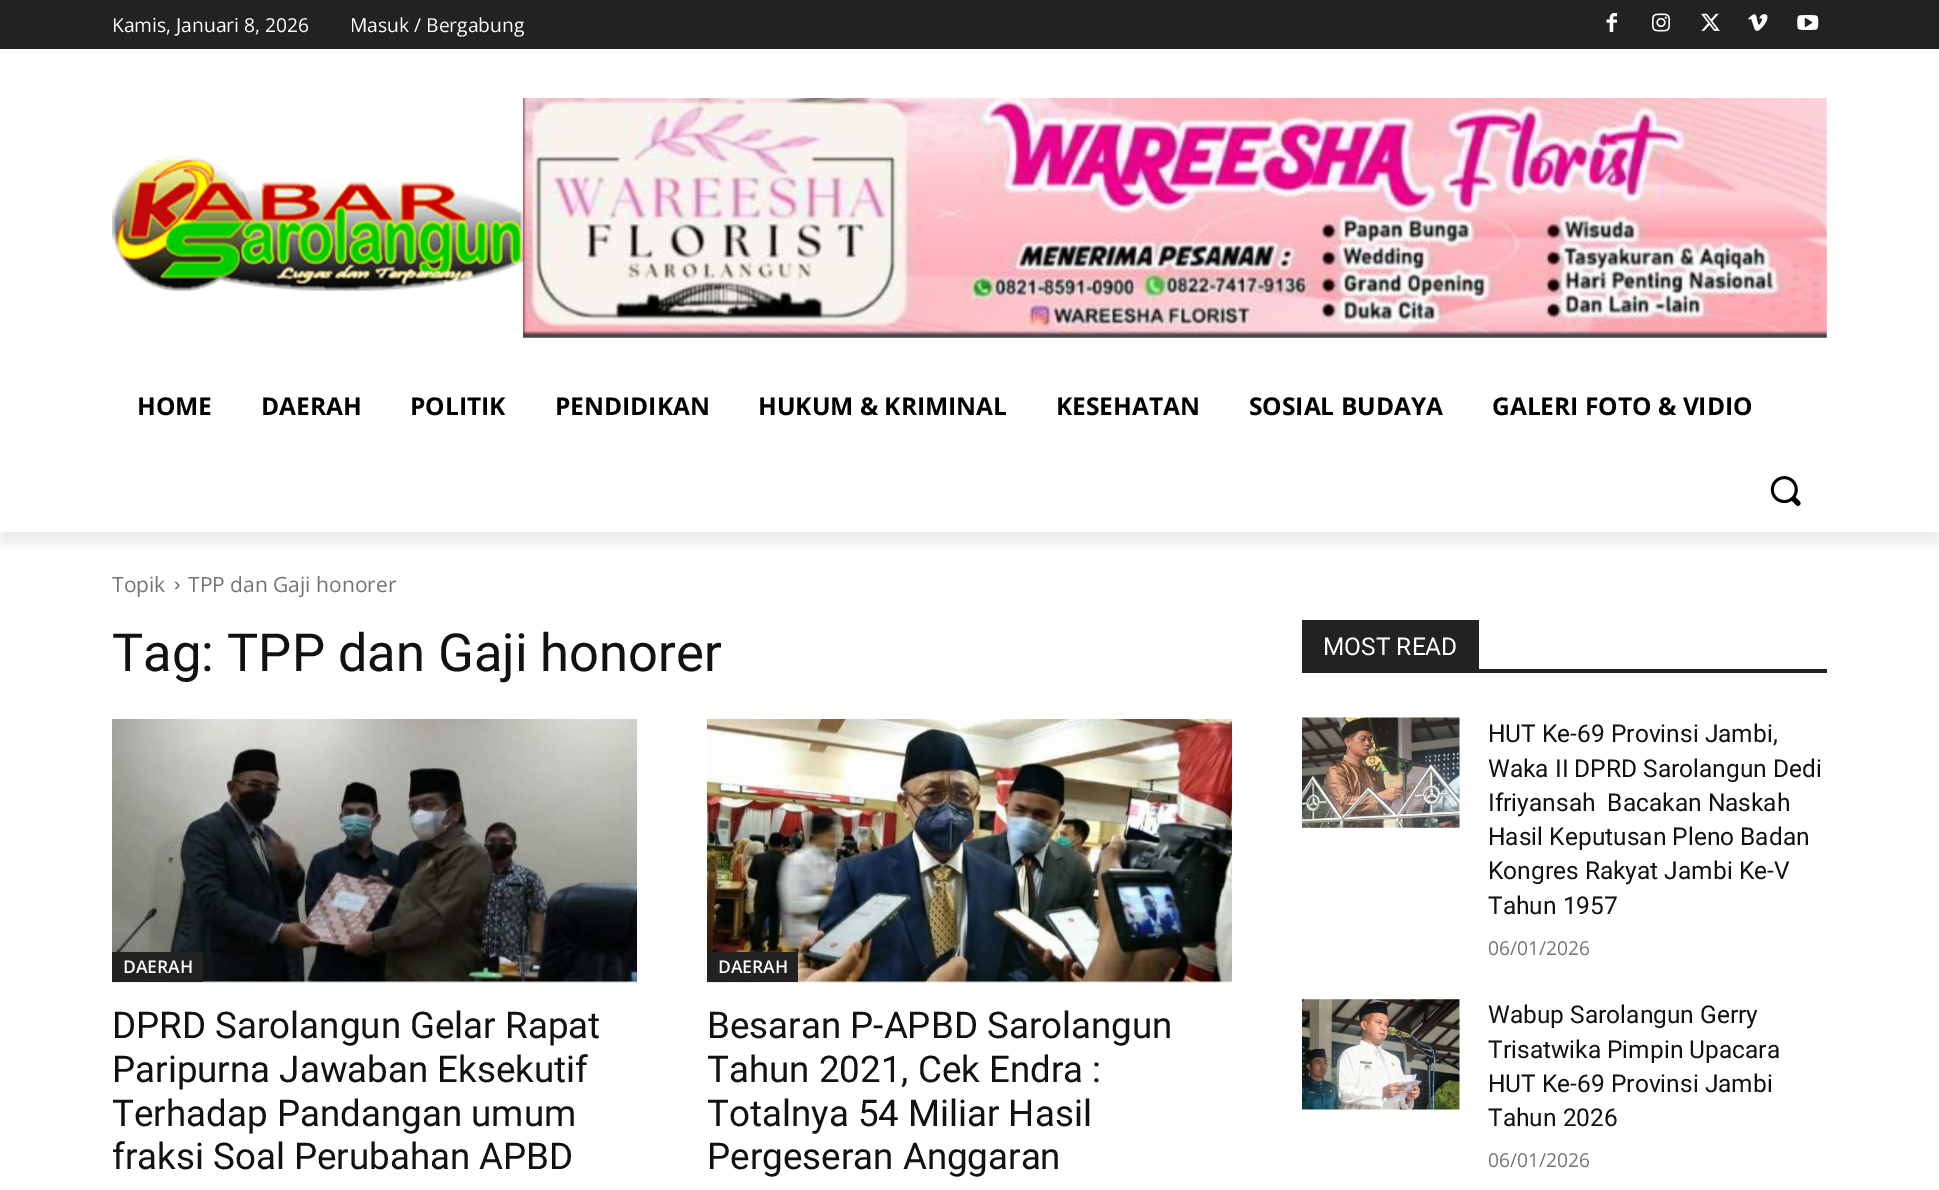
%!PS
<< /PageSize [1939 1190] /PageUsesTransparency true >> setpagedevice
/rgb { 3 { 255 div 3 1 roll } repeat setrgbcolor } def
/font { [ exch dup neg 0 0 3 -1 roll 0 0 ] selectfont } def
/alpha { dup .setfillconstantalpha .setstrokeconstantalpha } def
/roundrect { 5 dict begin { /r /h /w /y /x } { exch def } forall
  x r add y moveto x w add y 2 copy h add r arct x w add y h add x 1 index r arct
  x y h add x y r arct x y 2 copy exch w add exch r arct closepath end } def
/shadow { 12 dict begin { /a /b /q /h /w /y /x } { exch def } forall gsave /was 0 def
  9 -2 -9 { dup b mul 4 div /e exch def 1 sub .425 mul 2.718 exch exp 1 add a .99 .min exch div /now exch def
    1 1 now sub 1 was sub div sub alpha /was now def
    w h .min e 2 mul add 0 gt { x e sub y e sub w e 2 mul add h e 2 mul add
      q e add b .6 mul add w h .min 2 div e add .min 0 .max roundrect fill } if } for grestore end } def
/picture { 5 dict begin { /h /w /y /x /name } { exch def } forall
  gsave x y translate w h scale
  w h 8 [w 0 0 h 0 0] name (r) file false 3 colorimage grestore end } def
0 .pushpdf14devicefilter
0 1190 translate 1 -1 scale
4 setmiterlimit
255 255 255 rgb
0 0 1939 1190 rectfill
34 34 34 rgb
0 0 1939 49 rectfill
(img/1.rgb) 1606 13 11 19 picture
(img/2.rgb) 1652 13 18 19 picture
(img/3.rgb) 1701 13 19 18 picture
(img/4.rgb) 1748 14 20 17 picture
(img/5.rgb) 1797 15 22 15 picture
(img/6.rgb) 112 155 411 136 picture
(img/7.rgb) 523 98 1304 240 picture
gsave
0 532 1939 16 rectclip
0 0 0 rgb
0 11 1939 532 0 7 0.08 shadow
grestore
(img/8.rgb) 1770 476 31 30 picture
(img/9.rgb) 175 581 5 9 picture
(img/10.rgb) 112 719 525 264 picture
112 952 91 30 rectfill
(img/11.rgb) 707 719 525 264 picture
[
  [707 952 91 30 34 34 34]
  [1302 669 525 4 34 34 34]
  [1302 620 177 49 34 34 34]
] { aload pop rgb rectfill } forall
(img/12.rgb) 1302 717 158 111 picture
(img/13.rgb) 1302 999 158 111 picture
/OpenSans-Regular 19.25 font
255 255 255 rgb
112 32 moveto (Kamis, Januari 8, 2026) show
350 32 moveto (Masuk / Bergabung) show
/OpenSans-Bold 24.5 font
0 0 0 rgb
[
  [(HOME) 137 415]
  [(DAERAH) 261 415]
  [(POLITIK) 410 415]
  [(PENDIDIKAN) 555 415]
  [(HUKUM & KRIMINAL) 758 415]
  [(KESEHATAN) 1056 415]
  [(SOSIAL BUDAYA) 1249 415]
  [(GALERI FOTO & VIDIO) 1492 415]
] { aload pop moveto show } forall
/OpenSans-Regular 21 font
116 116 116 rgb
112 592 moveto (Topik) show
188 592 moveto (TPP dan Gaji honorer) show
/Roboto-Regular 52.5 font
17 17 17 rgb
112 671 moveto (Tag: TPP dan Gaji honorer) show
/OpenSans-SemiBold 17.5 font
255 255 255 rgb
123 973 moveto (DAERAH) show
/Roboto-Regular 36.75 font
17 17 17 rgb
[
  [(DPRD Sarolangun Gelar Rapat) 112 1038]
  [(Paripurna Jawaban Eksekutif) 112 1082]
  [(Terhadap Pandangan umum) 112 1126]
  [(fraksi Soal Perubahan APBD) 112 1169]
] { aload pop moveto show } forall
/OpenSans-SemiBold 17.5 font
255 255 255 rgb
718 973 moveto (DAERAH) show
/Roboto-Regular 36.75 font
17 17 17 rgb
[
  [(Besaran P-APBD Sarolangun) 707 1038]
  [(Tahun 2021, Cek Endra :) 707 1082]
  [(Totalnya 54 Miliar Hasil) 707 1126]
  [(Pergeseran Anggaran) 707 1169]
] { aload pop moveto show } forall
/Roboto-Regular 24.5 font
255 255 255 rgb
1323 655 moveto (MOST READ) show
17 17 17 rgb
[
  [(HUT Ke-69 Provinsi Jambi,) 1488 742]
  [(Waka II DPRD Sarolangun Dedi) 1488 777]
  [(Ifriyansah  Bacakan Naskah) 1488 811]
  [(Hasil Keputusan Pleno Badan) 1488 845]
  [(Kongres Rakyat Jambi Ke-V) 1488 879]
  [(Tahun 1957) 1488 914]
] { aload pop moveto show } forall
/OpenSans-Regular 19.25 font
116 116 116 rgb
1488 955 moveto (06/01/2026) show
/Roboto-Regular 24.5 font
17 17 17 rgb
[
  [(Wabup Sarolangun Gerry) 1488 1023]
  [(Trisatwika Pimpin Upacara) 1488 1058]
  [(HUT Ke-69 Provinsi Jambi) 1488 1092]
  [(Tahun 2026) 1488 1126]
] { aload pop moveto show } forall
/OpenSans-Regular 19.25 font
116 116 116 rgb
1488 1167 moveto (06/01/2026) show
.poppdf14devicefilter showpage
